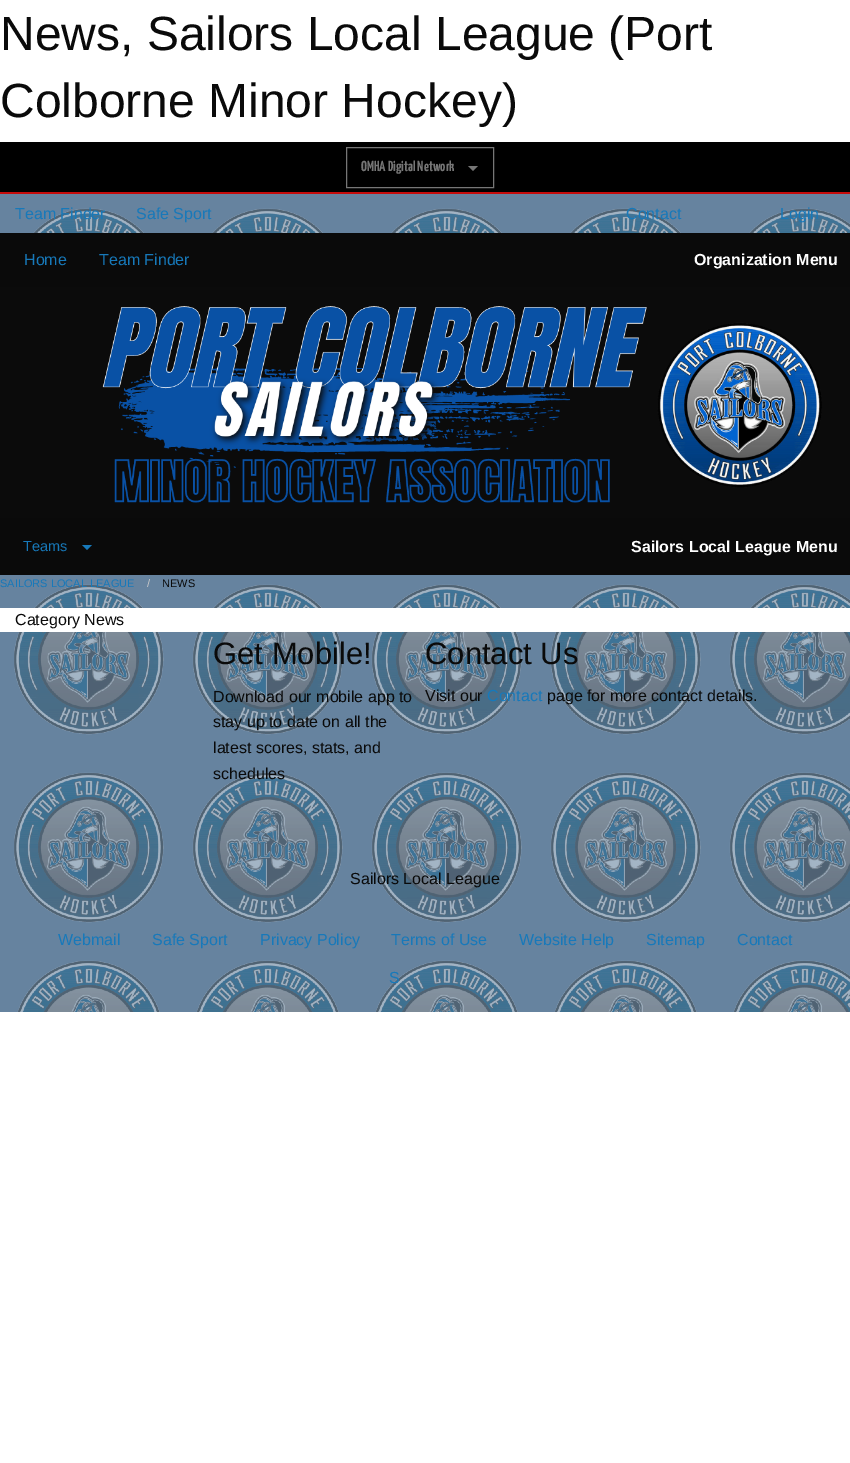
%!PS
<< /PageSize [850 1463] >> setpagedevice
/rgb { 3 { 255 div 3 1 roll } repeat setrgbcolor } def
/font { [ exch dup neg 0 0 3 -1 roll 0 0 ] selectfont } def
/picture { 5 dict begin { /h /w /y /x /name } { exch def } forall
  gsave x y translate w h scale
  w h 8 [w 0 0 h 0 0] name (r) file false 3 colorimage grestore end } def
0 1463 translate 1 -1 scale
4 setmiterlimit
255 255 255 rgb
0 0 850 1463 rectfill
0 0 0 rgb
0 142 850 50 rectfill
198 12 12 rgb
0 192 850 2 rectfill
118 118 118 rgb
346.5 147.5 147 40 rectstroke
468 166 moveto 478 166 lineto 473 171 lineto closepath fill
102 131 159 rgb
0 194 850 818 rectfill
(img/1.rgb) 14 208 836 804 picture
10 10 10 rgb
0 233 850 54 rectfill
(img/2.rgb) 0 287 850 231 picture
0 518 850 57 rectfill
23 121 186 rgb
82 545 moveto 92 545 lineto 87 550 lineto closepath fill
255 255 255 rgb
0 608 850 24 rectfill
/LiberationSans-Regular 48 font
10 10 10 rgb
0 50 moveto (News, Sailors Local League \(Port) show
0 117 moveto (Colborne Minor Hockey\)) show
/YanoneKaffeesatz-ExtraLight 14.5 font
118 118 118 rgb
361 171 moveto (OMHA Digital Network) show
/LiberationSans-Regular 16 font
23 121 186 rgb
[
  [(Team Finder) 15 219]
  [(Safe Sport) 136 219]
  [(Contact) 626 219]
  [(Login) 780 219]
  [(Home) 24 265]
  [(Team Finder) 99 265]
] { aload pop moveto show } forall
/LiberationSans-Bold 16 font
254 254 254 rgb
694 265 moveto (Organization Menu) show
/LiberationSans-Regular 14.5 font
23 121 186 rgb
23 551 moveto (Teams) show
/LiberationSans-Bold 16 font
254 254 254 rgb
631 552 moveto (Sailors Local League Menu) show
/LiberationSans-Regular 11 font
23 121 186 rgb
0 587 moveto (SAILORS LOCAL LEAGUE) show
202 202 202 rgb
147 587 moveto (/) show
10 10 10 rgb
162 587 moveto (NEWS) show
/LiberationSans-Regular 16 font
15 625 moveto (Category News) show
/LiberationSans-Regular 31 font
213 664 moveto (Get Mobile!) show
/LiberationSans-Regular 16 font
[
  [(Download our mobile app to) 213 702]
  [(stay up to date on all the) 213 727]
  [(latest scores, stats, and) 213 753]
  [(schedules) 213 779]
] { aload pop moveto show } forall
/LiberationSans-Regular 31 font
425 664 moveto (Contact Us) show
/LiberationSans-Regular 16 font
425 701 moveto (Visit our) show
23 121 186 rgb
487 701 moveto (Contact) show
10 10 10 rgb
547 701 moveto (page for more contact details.) show
350 884 moveto (Sailors Local League) show
23 121 186 rgb
[
  [(Webmail) 58 945]
  [(Safe Sport) 152 945]
  [(Privacy Policy) 260 945]
  [(Terms of Use) 391 945]
  [(Website Help) 519 945]
  [(Sitemap) 646 945]
  [(Contact) 737 945]
  [(S) 389 983]
] { aload pop moveto show } forall
showpage
